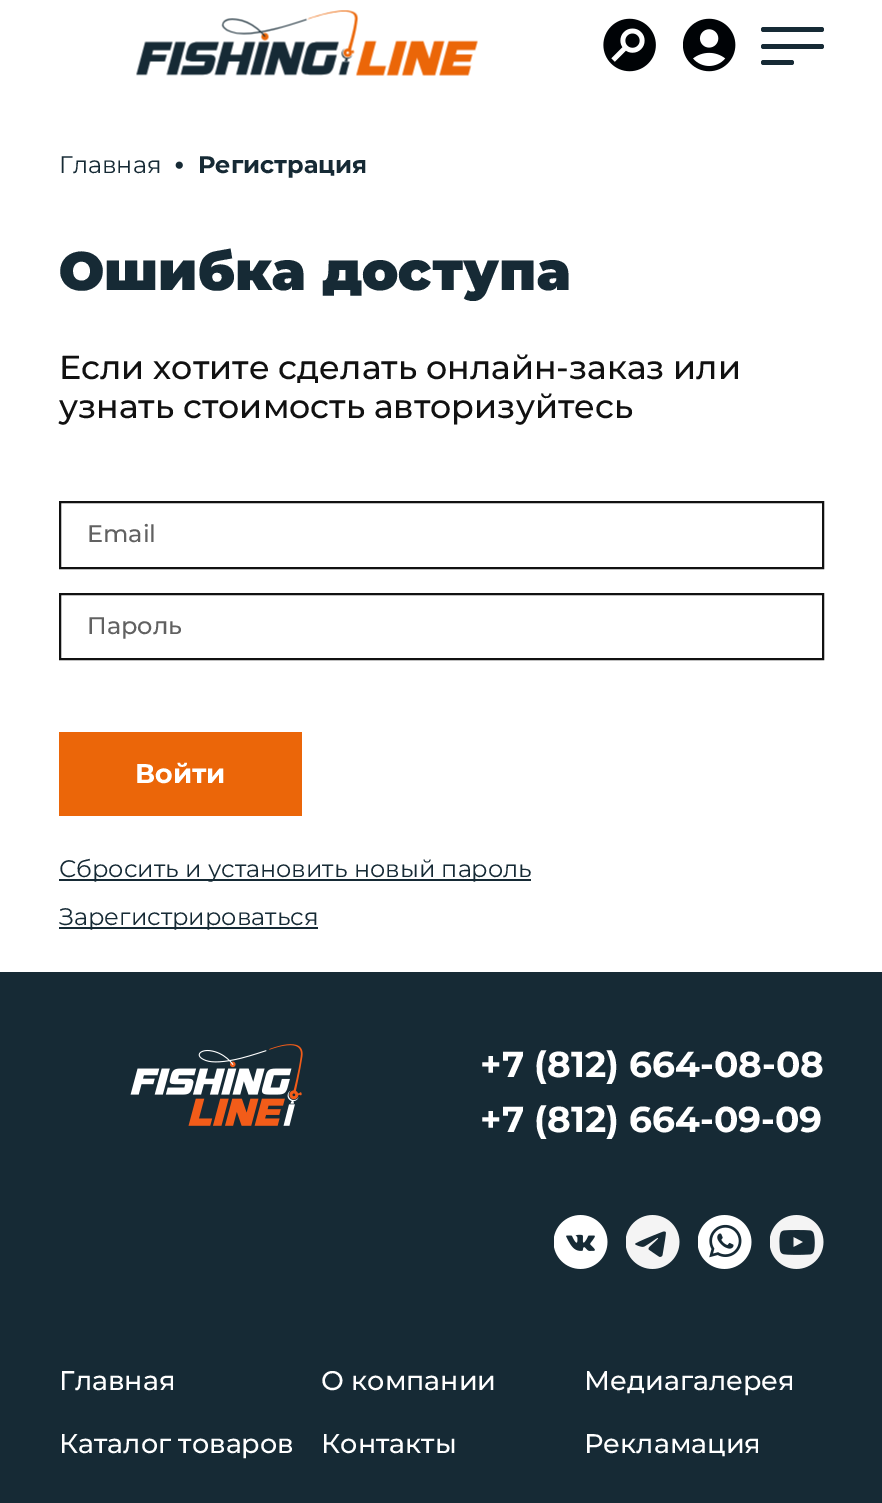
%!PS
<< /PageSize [882 1503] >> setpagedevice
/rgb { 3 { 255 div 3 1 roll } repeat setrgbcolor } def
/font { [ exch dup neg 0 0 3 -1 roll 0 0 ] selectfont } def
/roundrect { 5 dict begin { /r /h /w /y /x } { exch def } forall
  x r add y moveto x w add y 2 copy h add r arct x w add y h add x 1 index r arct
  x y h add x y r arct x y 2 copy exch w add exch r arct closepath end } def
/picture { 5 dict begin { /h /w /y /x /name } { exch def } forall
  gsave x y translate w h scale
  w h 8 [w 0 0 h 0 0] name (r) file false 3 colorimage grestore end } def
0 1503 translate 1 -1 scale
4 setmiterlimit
255 255 255 rgb
0 0 882 1503 rectfill
(img/1.rgb) 136 10 342 66 picture
(img/2.rgb) 603 18 53 54 picture
(img/3.rgb) 683 18 53 54 picture
22 42 53 rgb
761 27 63 5 2.5 roundrect fill
761 44 63 5 2.5 roundrect fill
761 60 33 5 2.5 roundrect fill
(img/4.rgb) 175 161 8 8 picture
17 17 17 rgb
2 setlinewidth
60 502 763 66 rectstroke
60 594 763 65 rectstroke
[
  [59 732 243 84 235 102 9]
  [59 879 472 2 22 42 53]
  [59 927 259 2 22 42 53]
  [0 972 882 531 22 42 53]
] { aload pop rgb rectfill } forall
(img/5.rgb) 130 1044 173 82 picture
(img/6.rgb) 554 1215 54 54 picture
(img/7.rgb) 626 1215 54 54 picture
(img/8.rgb) 698 1215 54 54 picture
(img/9.rgb) 770 1215 54 54 picture
/Montserrat-Regular 24 font
59 173 moveto (Главная) show
/Montserrat-Bold 24 font
198 173 moveto (Регистрация) show
/Montserrat-Black 54 font
59 290 moveto (Ошибка доступа) show
/Montserrat-Medium 33.25 font
17 17 17 rgb
59 379 moveto (Если хотите сделать онлайн-заказ или) show
59 418 moveto (узнать стоимость авторизуйтесь) show
/Montserrat-Medium 24 font
97 97 97 rgb
87 542 moveto (Email) show
87 634 moveto (Пароль) show
/Montserrat-Bold 27 font
255 255 255 rgb
135 783 moveto (Войти) show
/Montserrat-Regular 24 font
22 42 53 rgb
59 877 moveto (Сбросить и установить новый пароль) show
59 925 moveto (Зарегистрироваться) show
/Montserrat-Bold 36 font
255 255 255 rgb
480 1077 moveto (+7 \(812\) 664-08-08) show
480 1132 moveto (+7 \(812\) 664-09-09) show
/Montserrat-Medium 27 font
[
  [(Главная) 59 1390]
  [(О компании) 321 1390]
  [(Медиагалерея) 584 1390]
  [(Каталог товаров) 59 1453]
  [(Контакты) 321 1453]
  [(Рекламация) 584 1453]
] { aload pop moveto show } forall
showpage
